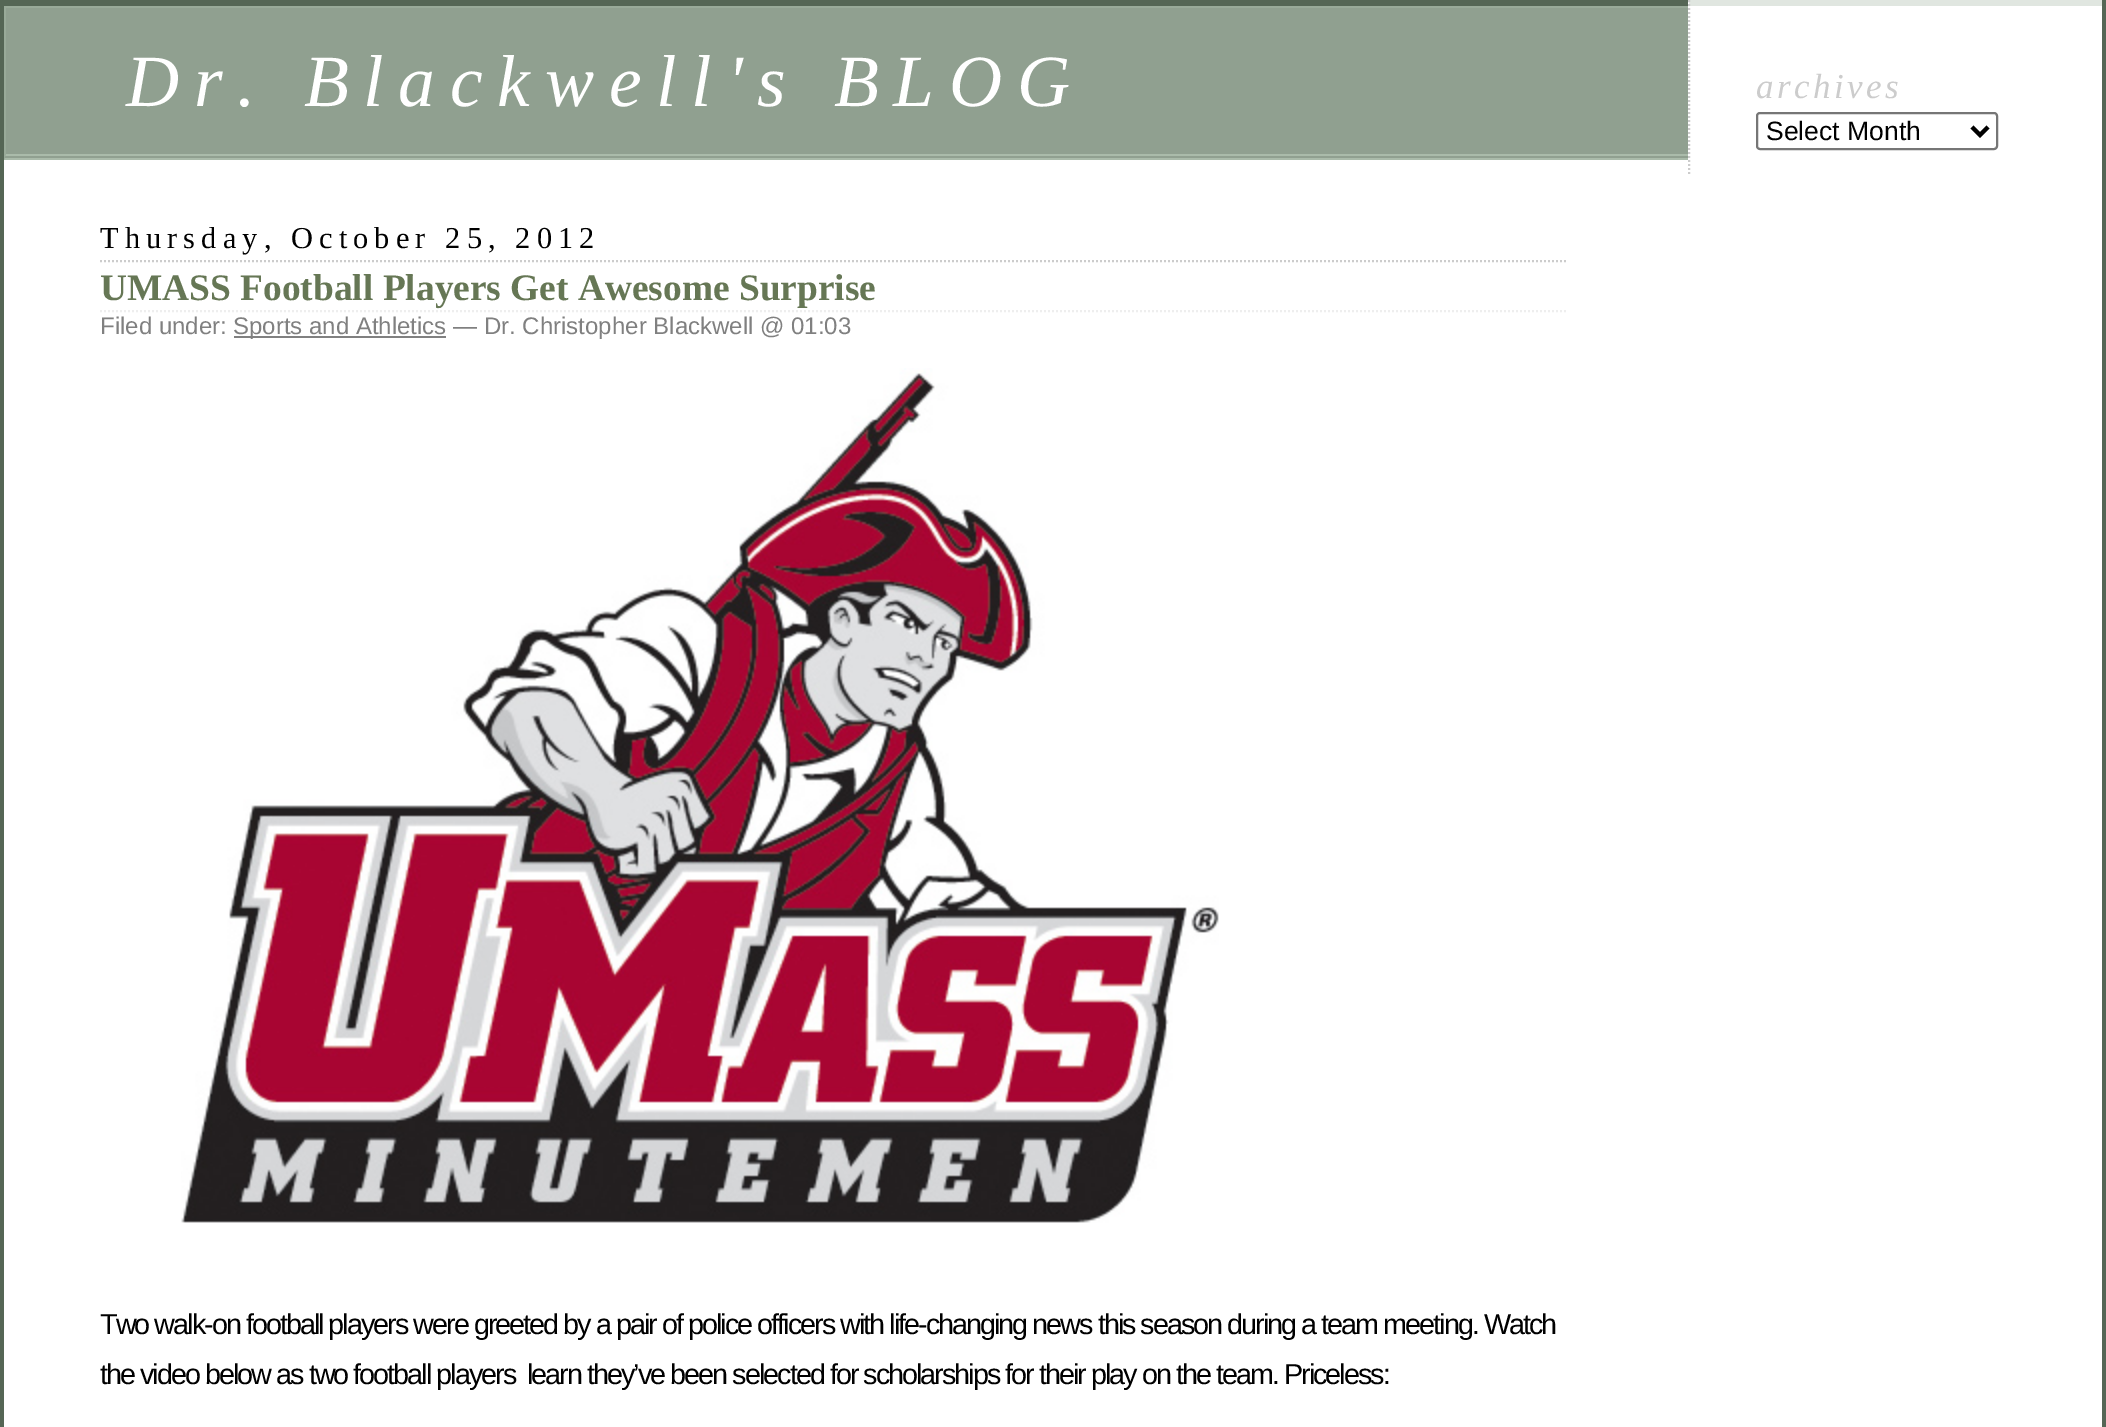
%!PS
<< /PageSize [2106 1427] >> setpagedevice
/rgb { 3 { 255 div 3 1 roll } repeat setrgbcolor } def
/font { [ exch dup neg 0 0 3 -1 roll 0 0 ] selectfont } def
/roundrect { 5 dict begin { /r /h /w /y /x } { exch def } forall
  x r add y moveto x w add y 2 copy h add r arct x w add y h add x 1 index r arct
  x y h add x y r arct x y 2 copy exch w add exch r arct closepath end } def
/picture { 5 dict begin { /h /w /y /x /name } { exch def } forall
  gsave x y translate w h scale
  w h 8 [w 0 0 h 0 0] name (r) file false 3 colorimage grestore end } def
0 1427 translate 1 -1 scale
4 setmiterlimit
255 255 255 rgb
0 0 2106 1427 rectfill
[
  [0 0 1688 6 85 102 85]
  [2102 0 4 1427 85 102 85]
  [0 0 4 1427 85 102 85]
  [4 8 1684 150 144 160 144]
  [4 6 1684 2 153 170 153]
  [4 154 1684 2 170 187 170]
  [4 158 1684 2 170 187 170]
] { aload pop rgb rectfill } forall
153 170 153 rgb
4 160 moveto 4 6 lineto 6 8 lineto 6 154 lineto closepath fill
224 230 224 rgb
1688 0 moveto 2102 0 lineto 2102 6 lineto 1690 6 lineto closepath fill
204 204 204 rgb
2 setlinewidth
[2 2] 0 setdash
1689 0 moveto 1689 174 lineto stroke
118 118 118 rgb
[] 0 setdash
1757 113 240 36 3 roundrect stroke
0 0 0 rgb
4 setlinewidth
1972 127 moveto 1980 135 lineto 1988 127 lineto stroke
204 204 204 rgb
2 setlinewidth
[2 2] 0 setdash
100 261 moveto 1566 261 lineto stroke
238 238 238 rgb
100 311 moveto 1566 311 lineto stroke
128 128 128 rgb
234 336 212 2 rectfill
(img/1.rgb) 181 368 1038 855 picture
/LiberationSerif-Italic 73.6 font
255 255 255 rgb
126 106 moveto 14.75 0 (Dr. Blackwell's BLOG) ashow
/LiberationSerif-Italic 35 font
204 204 204 rgb
1756 98 moveto 3.5 0 (archives) ashow
/LiberationSans-Regular 26.5 font
0 0 0 rgb
1766 140 moveto (Select Month) show
/LiberationSerif-Regular 30.4 font
100 248 moveto 6.1 0 (Thursday, October 25, 2012) ashow
/LiberationSerif-Bold 37.4 font
102 119 85 rgb
100 300 moveto (UMASS Football Players Get Awesome Surprise) show
/LiberationSans-Regular 24 font
128 128 128 rgb
100 334 moveto (Filed under:) show
233 334 moveto (Sports and Athletics — Dr. Christopher Blackwell @ 01:03) show
/LiberationSans-Regular 28.8 font
0 0 0 rgb
100 1334 moveto -2 0 (Two walk-on football players were greeted by a pair of police officers with life-changing news this season during a team meeting. Watch) ashow
100 1384 moveto -2 0 (the video below as two football players  learn they’ve been selected for scholarships for their play on the team. Priceless:) ashow
showpage
